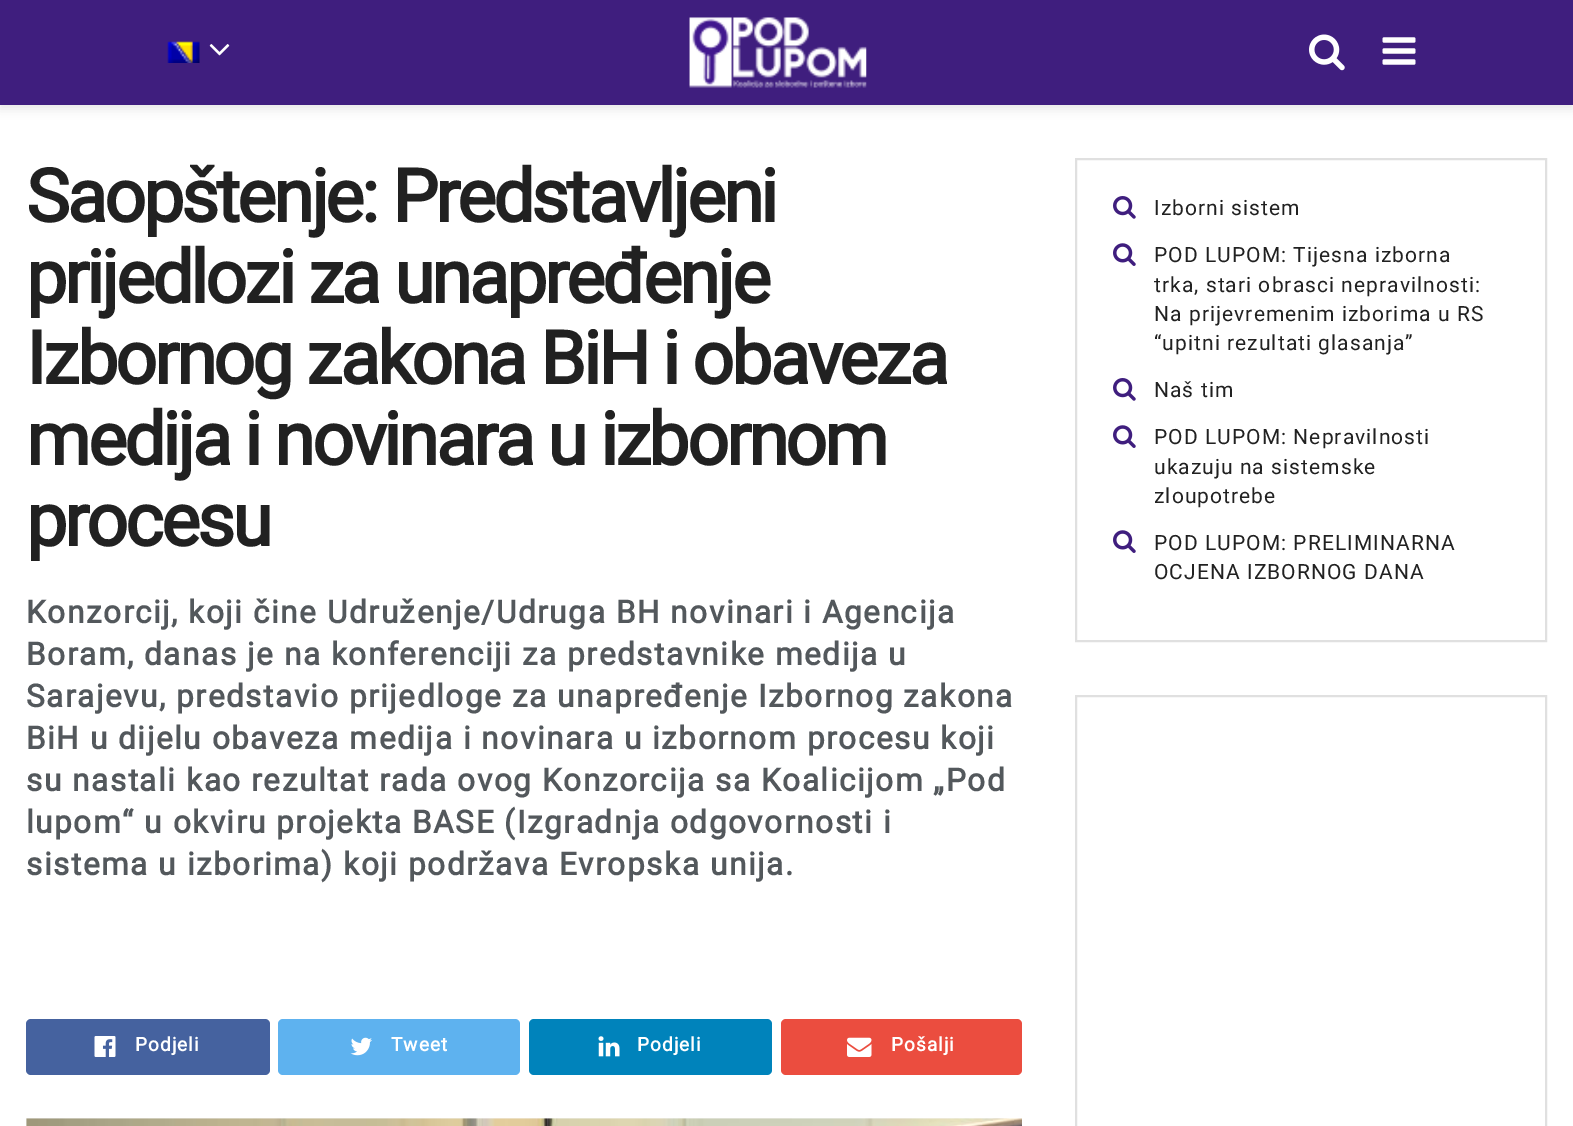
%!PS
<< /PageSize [1573 1126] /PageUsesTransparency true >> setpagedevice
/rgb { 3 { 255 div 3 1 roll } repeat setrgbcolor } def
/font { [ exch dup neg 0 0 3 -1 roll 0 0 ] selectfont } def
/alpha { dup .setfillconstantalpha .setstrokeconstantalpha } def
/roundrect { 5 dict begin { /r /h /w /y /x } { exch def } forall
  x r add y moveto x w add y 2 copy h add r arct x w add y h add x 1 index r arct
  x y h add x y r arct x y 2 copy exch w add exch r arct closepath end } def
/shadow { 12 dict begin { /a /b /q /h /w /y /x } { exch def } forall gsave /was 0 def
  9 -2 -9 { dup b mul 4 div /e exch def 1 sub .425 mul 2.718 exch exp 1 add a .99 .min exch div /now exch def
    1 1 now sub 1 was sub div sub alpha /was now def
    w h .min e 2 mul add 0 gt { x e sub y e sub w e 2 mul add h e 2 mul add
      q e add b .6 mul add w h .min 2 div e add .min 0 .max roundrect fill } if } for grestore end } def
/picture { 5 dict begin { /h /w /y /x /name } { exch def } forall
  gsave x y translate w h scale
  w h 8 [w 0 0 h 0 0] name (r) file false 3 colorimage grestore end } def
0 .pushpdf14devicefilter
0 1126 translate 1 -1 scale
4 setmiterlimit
255 255 255 rgb
0 0 1573 1126 rectfill
0 0 0 rgb
0 4 1573 105 0 5 0.1 shadow
63 30 126 rgb
0 0 1573 105 rectfill
(img/1.rgb) 167 41 33 22 picture
(img/2.rgb) 209 44 21 12 picture
(img/3.rgb) 689 17 178 71 picture
(img/4.rgb) 1309 34 36 37 picture
(img/5.rgb) 1382 37 34 28 picture
69 98 159 rgb
26 1019 244 56 5 roundrect fill
(img/6.rgb) 94 1036 22 21 picture
94 178 239 rgb
278 1019 242 56 5 roundrect fill
(img/7.rgb) 350 1037 22 19 picture
0 131 187 rgb
529 1019 243 56 5 roundrect fill
(img/8.rgb) 598 1036 22 21 picture
235 77 63 rgb
781 1019 241 56 5 roundrect fill
(img/9.rgb) 847 1037 25 20 picture
247 247 247 rgb
26 1118 996 8 rectfill
(img/10.rgb) 26 1118 996 8 picture
224 224 224 rgb
2 setlinewidth
1076 159 470 482 rectstroke
(img/11.rgb) 1113 196 23 23 picture
(img/12.rgb) 1113 243 23 23 picture
(img/11.rgb) 1113 378 23 23 picture
(img/12.rgb) 1113 425 23 23 picture
(img/12.rgb) 1113 530 23 23 picture
1076 696 470 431 rectstroke
/Roboto-Bold 73.5 font
33 33 33 rgb
26 222 moveto -2.95 0 (Saopštenje: Predstavljeni) ashow
26 303 moveto -2.95 0 (prijedlozi za unapređenje) ashow
26 384 moveto -2.95 0 (Izbornog zakona BiH i obaveza) ashow
26 465 moveto -2.95 0 (medija i novinara u izbornom) ashow
26 546 moveto -2.95 0 (procesu) ashow
/Roboto-Bold 31.5 font
83 88 92 rgb
26 623 moveto 1.57 0 (Konzorcij, koji čine Udruženje/Udruga BH novinari i Agencija) ashow
26 665 moveto 1.57 0 (Boram, danas je na konferenciji za predstavnike medija u) ashow
26 707 moveto 1.57 0 (Sarajevu, predstavio prijedloge za unapređenje Izbornog zakona) ashow
26 749 moveto 1.57 0 (BiH u dijelu obaveza medija i novinara u izbornom procesu koji) ashow
26 791 moveto 1.57 0 (su nastali kao rezultat rada ovog Konzorcija sa Koalicijom „Pod) ashow
26 833 moveto 1.57 0 (lupom“ u okviru projekta BASE \(Izgradnja odgovornosti i) ashow
26 875 moveto 1.57 0 (sistema u izborima\) koji podržava Evropska unija.) ashow
/Roboto-Bold 19 font
255 255 255 rgb
135 1051 moveto 1 0 (Podjeli) ashow
391 1051 moveto 1 0 (Tweet) ashow
637 1051 moveto 1 0 (Podjeli) ashow
891 1051 moveto 1 0 (Pošalji) ashow
/Roboto-Regular 21 font
33 33 33 rgb
1154 215 moveto 1.05 0 (Izborni sistem) ashow
1154 262 moveto 1.05 0 (POD LUPOM: Tijesna izborna) ashow
1154 292 moveto 1.05 0 (trka, stari obrasci nepravilnosti:) ashow
1154 321 moveto 1.05 0 (Na prijevremenim izborima u RS) ashow
1154 350 moveto 1.05 0 (“upitni rezultati glasanja”) ashow
1154 397 moveto 1.05 0 (Naš tim) ashow
1154 444 moveto 1.05 0 (POD LUPOM: Nepravilnosti) ashow
1154 474 moveto 1.05 0 (ukazuju na sistemske) ashow
1154 503 moveto 1.05 0 (zloupotrebe) ashow
1154 550 moveto 1.05 0 (POD LUPOM: PRELIMINARNA) ashow
1154 579 moveto 1.05 0 (OCJENA IZBORNOG DANA) ashow
.poppdf14devicefilter showpage
